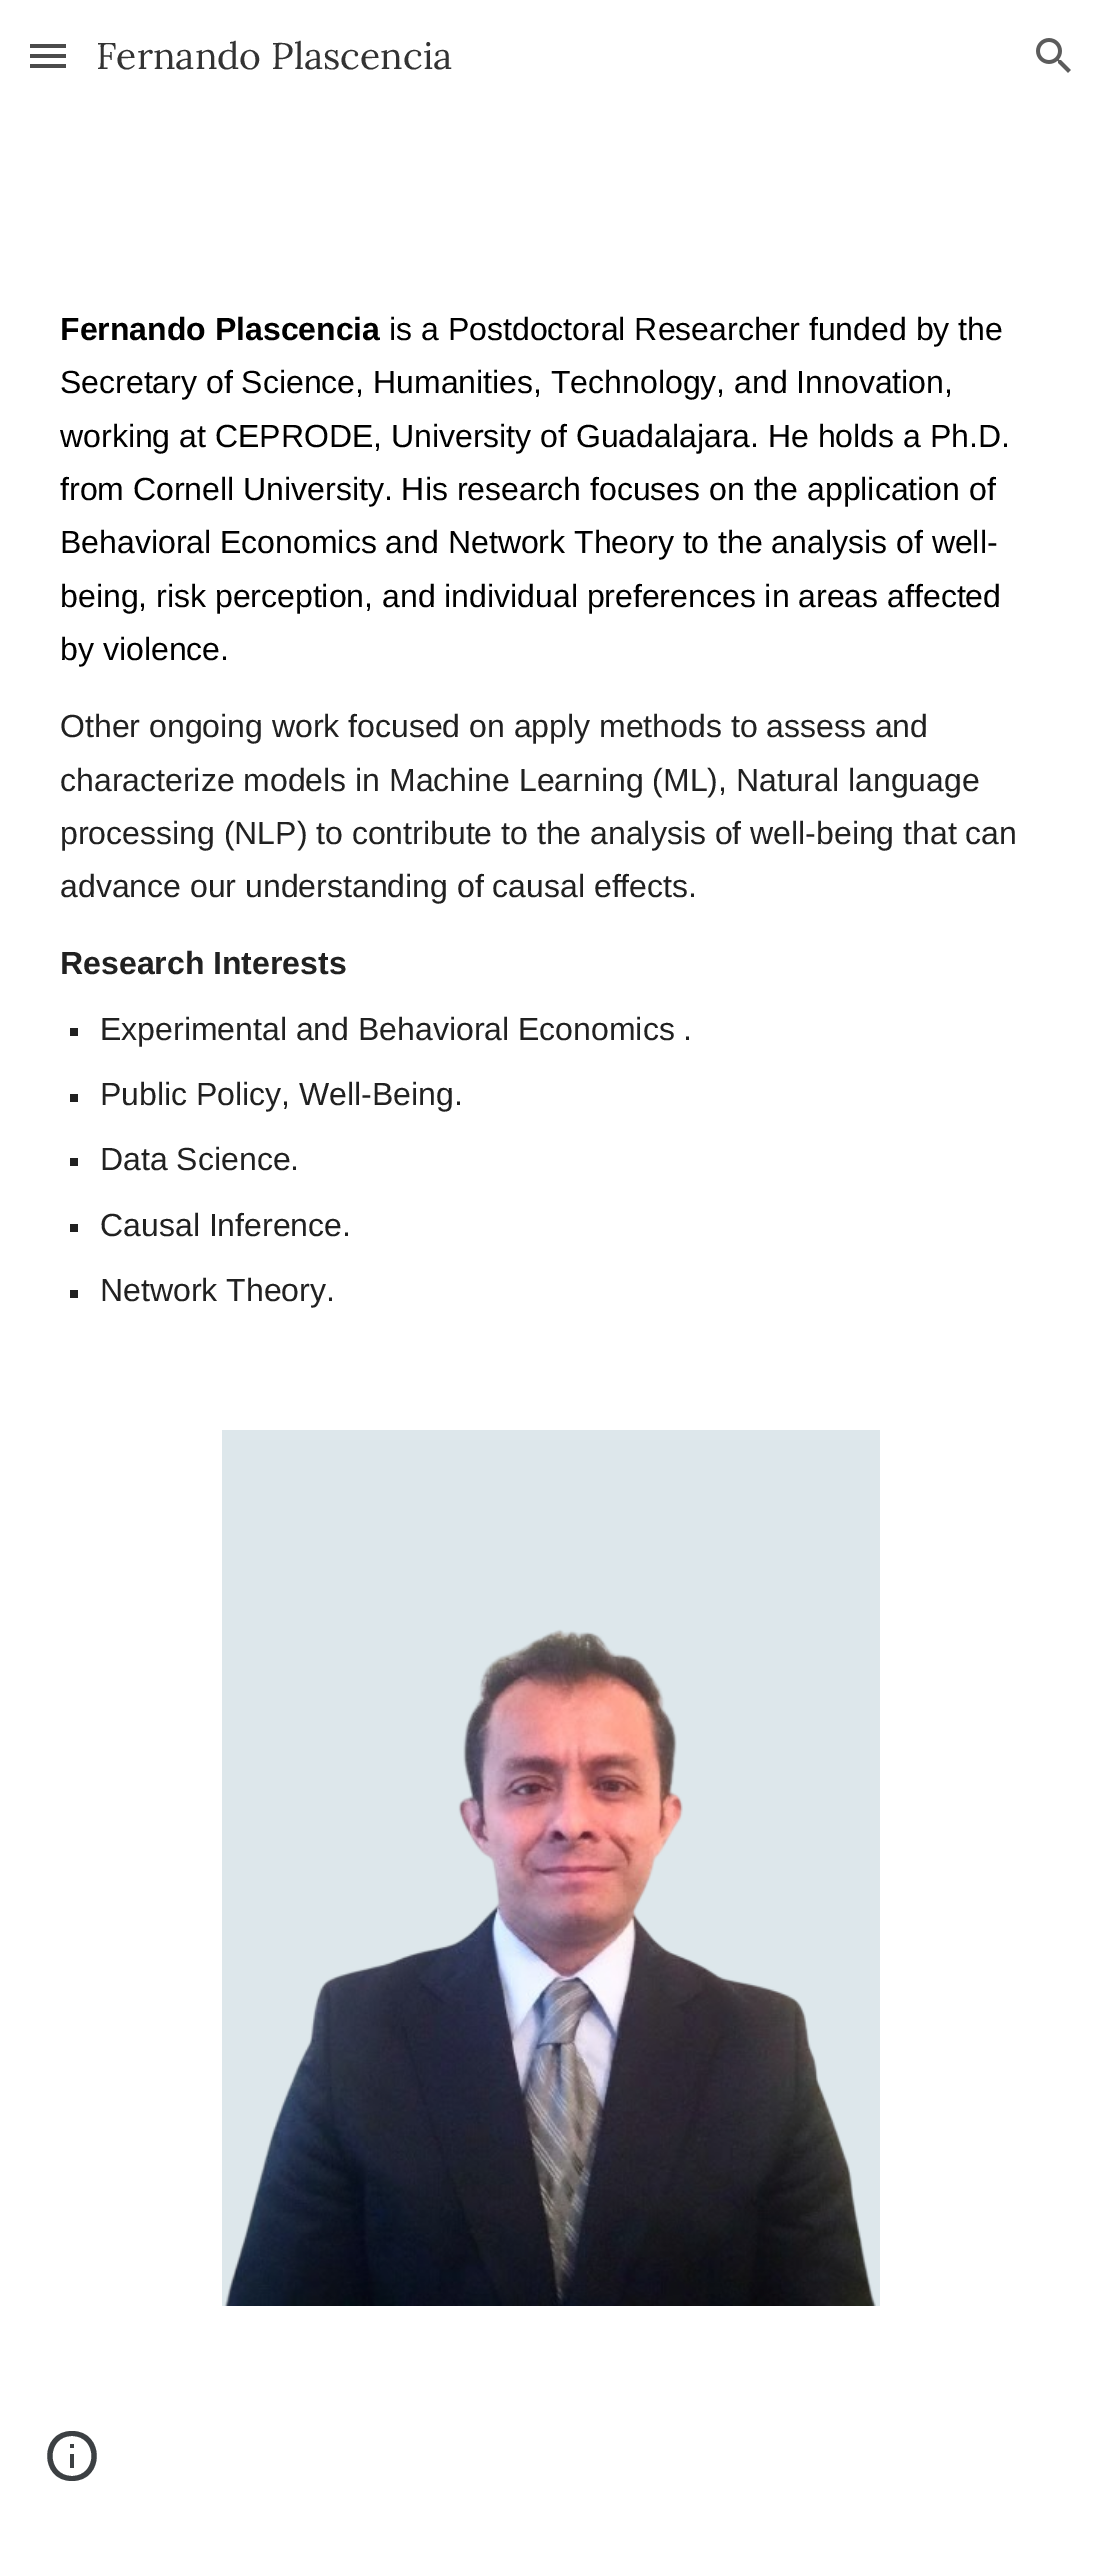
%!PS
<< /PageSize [1101 2550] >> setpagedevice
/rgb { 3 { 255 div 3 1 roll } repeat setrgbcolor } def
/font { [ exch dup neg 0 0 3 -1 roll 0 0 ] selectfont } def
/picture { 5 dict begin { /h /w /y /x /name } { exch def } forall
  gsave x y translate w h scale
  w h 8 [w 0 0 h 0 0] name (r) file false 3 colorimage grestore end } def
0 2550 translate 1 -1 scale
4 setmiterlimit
255 255 255 rgb
0 0 1101 2550 rectfill
[
  [30 44 36 4 75 75 75]
  [30 54 36 4 75 75 75]
  [30 64 36 4 75 75 75]
] { aload pop rgb rectfill } forall
(img/1.rgb) 1036 38 35 35 picture
[
  [70 1028 8 8 33 33 33]
  [70 1094 8 8 33 33 33]
  [70 1158 8 8 33 33 33]
  [70 1224 8 8 33 33 33]
  [70 1290 8 8 33 33 33]
] { aload pop rgb rectfill } forall
(img/2.rgb) 222 1430 658 876 picture
60 64 67 rgb
70 2468 moveto 74 2468 lineto 74 2454 lineto 70 2454 lineto closepath 72 2431 moveto 39 2431 39 2481 72 2481 curveto 105 2481 105 2431 72 2431 curveto closepath 72 2476 moveto 46 2476 46 2436 72 2436 curveto 98 2436 98 2476 72 2476 curveto closepath 70 2448 moveto 74 2448 lineto 74 2444 lineto 70 2444 lineto closepath fill
/Lora-Regular 37.25 font
51 51 51 rgb
96 69 moveto (Fernando Plascencia) show
/LiberationSans-Bold 32 font
0 0 0 rgb
60 340 moveto (Fernando Plascencia) show
/LiberationSans-Regular 32 font
[
  [(is a Postdoctoral Researcher funded by the) 389 340]
  [(Secretary of Science, Humanities, Technology, and Innovation,) 60 393]
  [(working at CEPRODE, University of Guadalajara. He holds a Ph.D.) 60 447]
  [(from Cornell University. His research focuses on the application of) 60 500]
  [(Behavioral Economics and Network Theory to the analysis of well-) 60 553]
  [(being, risk perception, and individual preferences in areas affected) 60 607]
  [(by violence.) 60 660]
] { aload pop moveto show } forall
33 33 33 rgb
[
  [(Other ongoing work focused on apply methods to assess and) 60 737]
  [(characterize models in Machine Learning \(ML\), Natural language) 60 791]
  [(processing \(NLP\) to contribute to the analysis of well-being that can) 60 844]
  [(advance our understanding of causal effects.) 60 897]
] { aload pop moveto show } forall
/LiberationSans-Bold 32 font
60 974 moveto (Research Interests) show
/LiberationSans-Regular 32 font
[
  [(Experimental and Behavioral Economics .) 100 1040]
  [(Public Policy, Well-Being.) 100 1105]
  [(Data Science.) 100 1170]
  [(Causal Inference.) 100 1236]
  [(Network Theory.) 100 1301]
] { aload pop moveto show } forall
showpage
